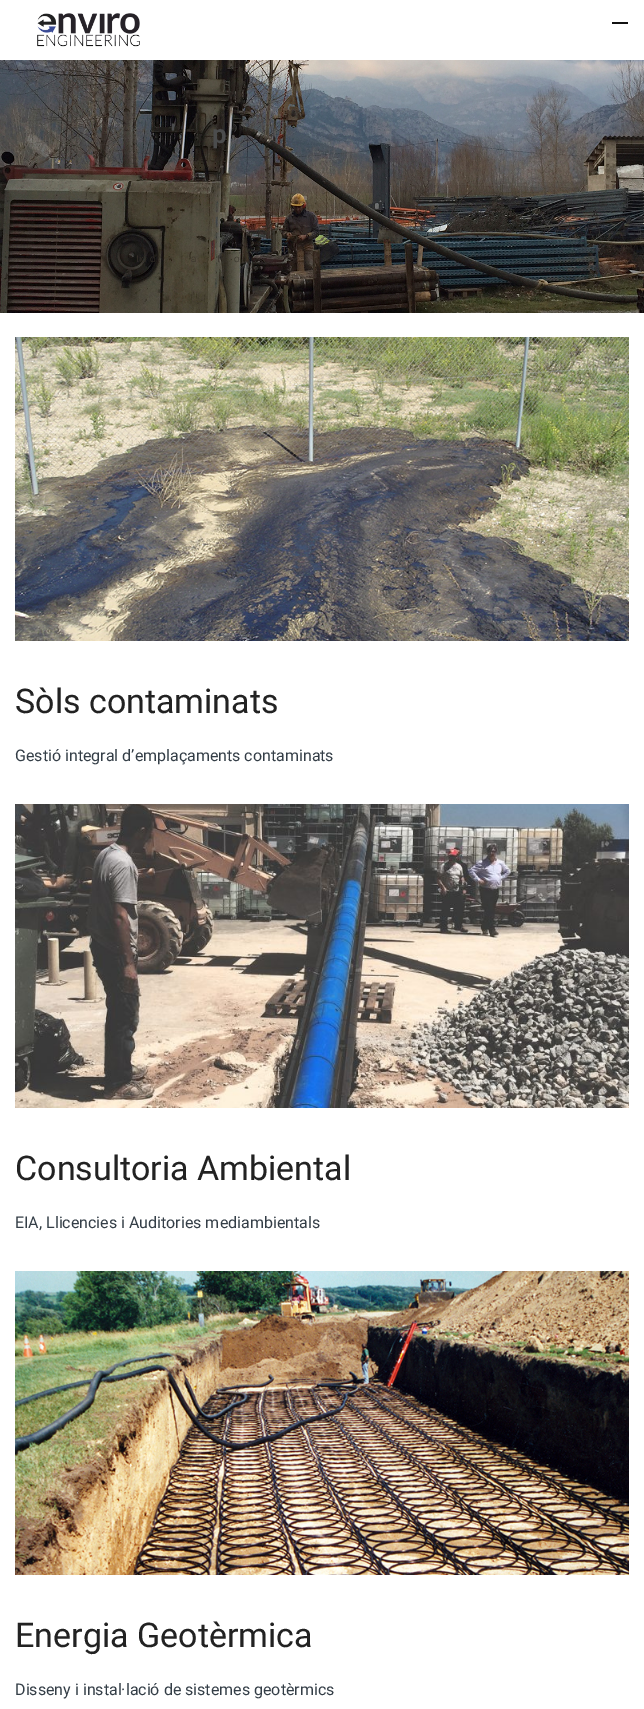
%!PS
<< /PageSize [644 1709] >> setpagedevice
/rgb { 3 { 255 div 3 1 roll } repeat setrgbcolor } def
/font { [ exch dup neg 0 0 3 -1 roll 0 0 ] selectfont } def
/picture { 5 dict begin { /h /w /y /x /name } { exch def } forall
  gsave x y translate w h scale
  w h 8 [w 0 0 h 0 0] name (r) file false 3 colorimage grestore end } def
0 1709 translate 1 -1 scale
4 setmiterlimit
255 255 255 rgb
0 0 644 1709 rectfill
(img/1.rgb) 37 13 103 34 picture
17 17 17 rgb
612 22 16 2 rectfill
(img/2.rgb) 0 60 644 253 picture
(img/3.rgb) 15 337 614 304 picture
(img/4.rgb) 15 804 614 304 picture
(img/5.rgb) 15 1271 614 304 picture
/Roboto-Bold 26 font
75 76 77 rgb
171 143 moveto (') show
212 143 moveto (p) show
/Roboto-Light 10 font
55 49 42 rgb
[
  [(tió d’) 136 262]
  [(a) 191 262]
  [(t) 217 262]
  [(o) 234 262]
] { aload pop moveto show } forall
/Roboto-Regular 34 font
34 34 34 rgb
15 713 moveto (Sòls contaminats) show
/Roboto-Regular 16 font
52 62 71 rgb
15 761 moveto (Gestió integral d’emplaçaments contaminats) show
/Roboto-Regular 34 font
34 34 34 rgb
15 1180 moveto (Consultoria Ambiental) show
/Roboto-Regular 16 font
52 62 71 rgb
15 1228 moveto (EIA, Llicencies i Auditories mediambientals) show
/Roboto-Regular 34 font
34 34 34 rgb
15 1647 moveto (Energia Geotèrmica) show
/Roboto-Regular 16 font
52 62 71 rgb
15 1695 moveto (Disseny i instal·lació de sistemes geotèrmics) show
showpage
